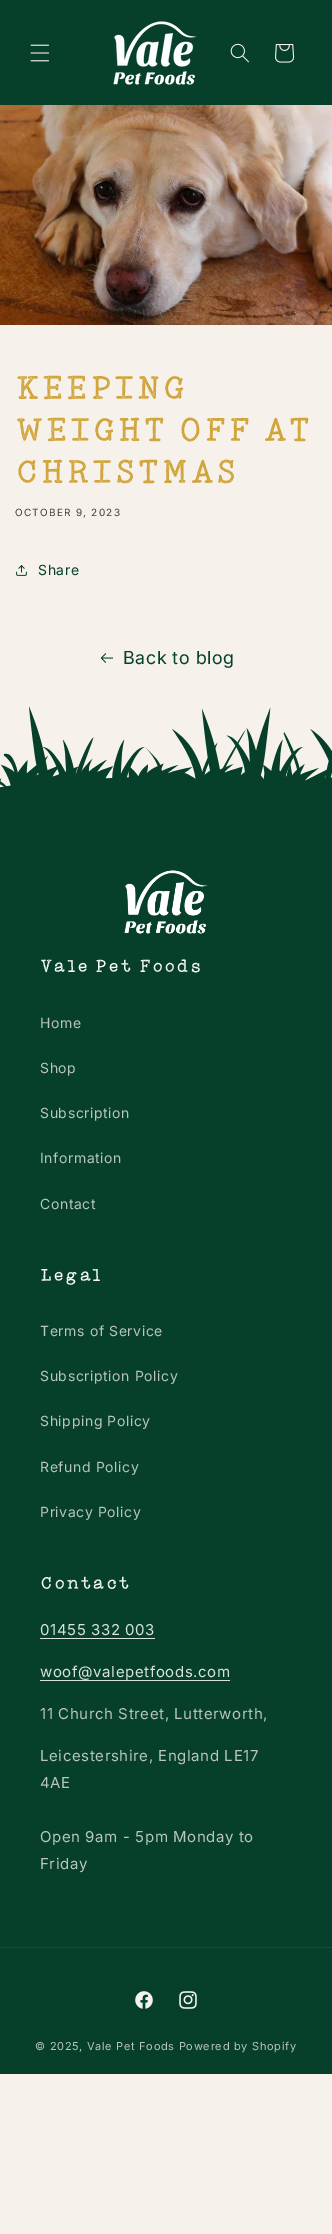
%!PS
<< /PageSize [332 2234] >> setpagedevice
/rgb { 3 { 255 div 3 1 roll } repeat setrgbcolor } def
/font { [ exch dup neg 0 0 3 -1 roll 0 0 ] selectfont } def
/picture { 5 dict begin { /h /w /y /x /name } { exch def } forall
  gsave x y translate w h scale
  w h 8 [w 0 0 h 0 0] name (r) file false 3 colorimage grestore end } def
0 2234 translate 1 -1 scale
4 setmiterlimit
246 242 235 rgb
0 0 332 2234 rectfill
6 64 43 rgb
0 0 332 105 rectfill
(img/1.rgb) 30 44 20 18 picture
(img/2.rgb) 113 21 84 64 picture
(img/3.rgb) 230 43 19 20 picture
(img/4.rgb) 275 44 20 19 picture
(img/5.rgb) 0 105 332 220 picture
(img/6.rgb) 16 565 11 11 picture
(img/7.rgb) 100 653 13 10 picture
(img/8.rgb) 0 706 332 88 picture
0 794 332 1280 rectfill
(img/9.rgb) 124 870 84 64 picture
[
  [40 1638 115 1 218 226 223]
  [40 1680 190 1 218 226 223]
  [0 1947 332 1 25 78 58]
] { aload pop rgb rectfill } forall
(img/10.rgb) 135 1991 18 18 picture
(img/11.rgb) 179 1991 18 18 picture
/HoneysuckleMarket-Bold 33 font
209 164 58 rgb
15 399 moveto 0.7 0 (KEEPING) ashow
15 441 moveto 0.7 0 (WEIGHT OFF AT) ashow
15 483 moveto 0.7 0 (CHRISTMAS) ashow
/Inter-Regular 10 font
62 61 59 rgb
15 516 moveto 1.25 0 (OCTOBER 9, 2023) ashow
/Inter-Regular 14 font
6 64 43 rgb
38 575 moveto 0.6 0 (Share) ashow
/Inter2-Regular 18 font
123 664 moveto 0.6 0 (Back to blog) ashow
/HoneysuckleMarket-Bold 17.5 font
255 255 255 rgb
40 972 moveto 0.7 0 (Vale Pet Foods) ashow
/Inter-Regular 14 font
186 198 187 rgb
40 1028 moveto 0.6 0 (Home) ashow
40 1073 moveto 0.6 0 (Shop) ashow
40 1118 moveto 0.6 0 (Subscription) ashow
40 1163 moveto 0.6 0 (Information) ashow
40 1209 moveto 0.6 0 (Contact) ashow
/HoneysuckleMarket-Bold 17.5 font
255 255 255 rgb
40 1281 moveto 0.7 0 (Legal) ashow
/Inter-Regular 14 font
186 198 187 rgb
40 1336 moveto 0.6 0 (Terms of Service) ashow
40 1381 moveto 0.6 0 (Subscription Policy) ashow
40 1426 moveto 0.6 0 (Shipping Policy) ashow
40 1472 moveto 0.6 0 (Refund Policy) ashow
40 1517 moveto 0.6 0 (Privacy Policy) ashow
/HoneysuckleMarket-Bold 17.5 font
255 255 255 rgb
40 1589 moveto 0.7 0 (Contact) ashow
/Inter-Regular 15 font
218 226 223 rgb
40 1635 moveto 0.6 0 (01455 332 003) ashow
40 1677 moveto 0.6 0 (woof@valepetfoods.com) ashow
186 198 187 rgb
40 1719 moveto 0.6 0 (11 Church Street, Lutterworth,) ashow
40 1761 moveto 0.6 0 (Leicestershire, England LE17) ashow
40 1788 moveto 0.6 0 (4AE) ashow
40 1842 moveto 0.6 0 (Open 9am - 5pm Monday to) ashow
40 1869 moveto 0.6 0 (Friday) ashow
/Inter-Regular 11 font
35 2050 moveto 0.7 0 (© 2025, Vale Pet Foods Powered by Shopify) ashow
showpage
